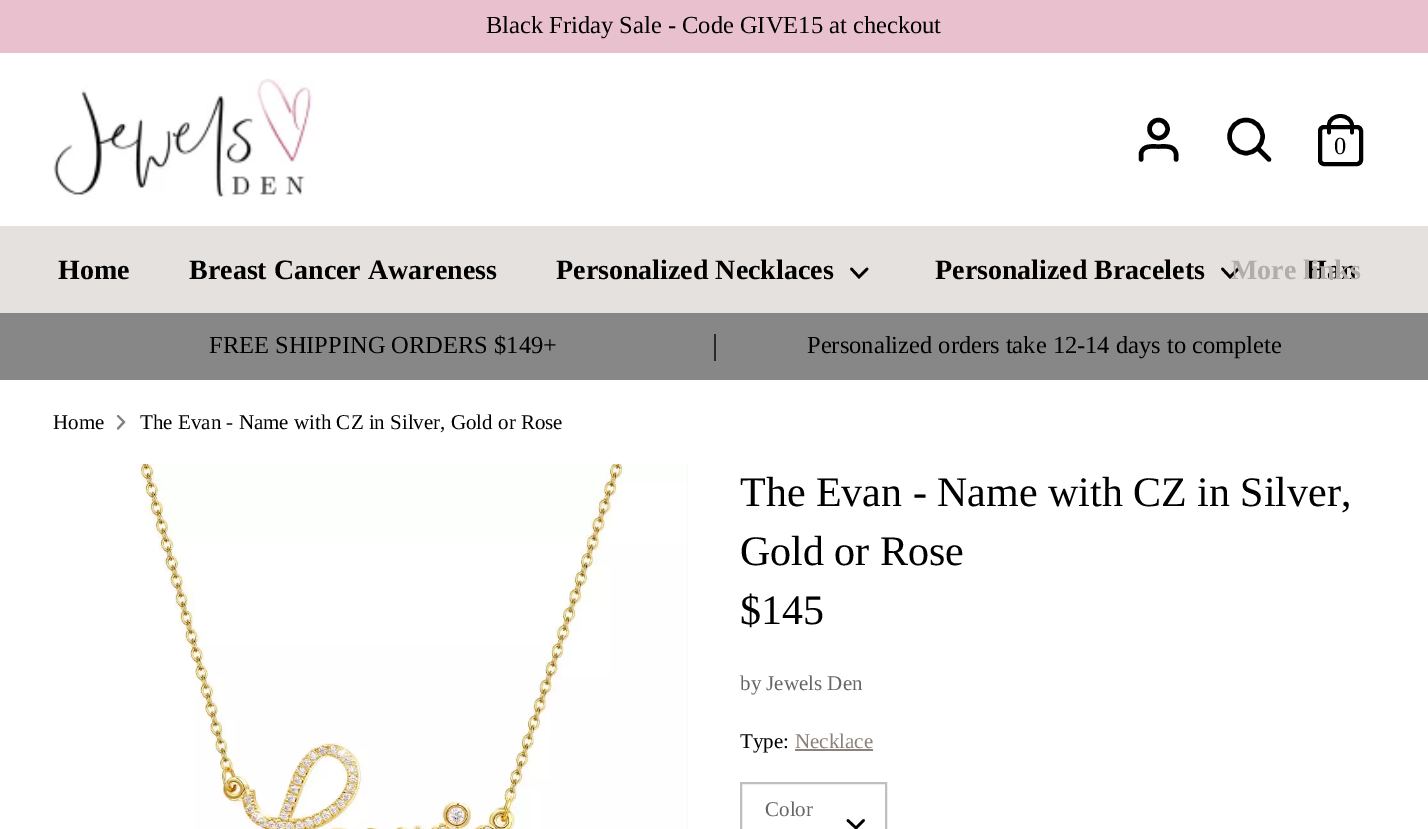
%!PS
<< /PageSize [1428 829] >> setpagedevice
/rgb { 3 { 255 div 3 1 roll } repeat setrgbcolor } def
/font { [ exch dup neg 0 0 3 -1 roll 0 0 ] selectfont } def
/circle { newpath 0 360 arc closepath } def
/roundrect { 5 dict begin { /r /h /w /y /x } { exch def } forall
  x r add y moveto x w add y 2 copy h add r arct x w add y h add x 1 index r arct
  x y h add x y r arct x y 2 copy exch w add exch r arct closepath end } def
/picture { 5 dict begin { /h /w /y /x /name } { exch def } forall
  gsave x y translate w h scale
  w h 8 [w 0 0 h 0 0] name (r) file false 3 colorimage grestore end } def
0 829 translate 1 -1 scale
4 setmiterlimit
255 255 255 rgb
0 0 1428 829 rectfill
232 192 206 rgb
0 0 1428 53 rectfill
(img/1.rgb) 53 78 262 119 picture
0 0 0 rgb
4.4 setlinewidth
1 setlinecap
1176 159.5 moveto 1176 153.5 lineto 1174 145 1165 146.5 1158.5 146.5 curveto 1152 146.5 1143 145 1141 153.5 curveto 1141 159.5 lineto stroke
0 setlinecap
1158.5 129 9 circle stroke
1246 136.5 16.5 circle stroke
1 setlinecap
1269 159.5 moveto 1258 148.5 lineto stroke
4 setlinewidth
0 setlinecap
1320 127 41 37 4 roundrect stroke
3.8 setlinewidth
1 setlinecap
1329 132.5 moveto 1329 125 lineto 1329 120 1334 116 1340.5 116 curveto 1346.5 116 1351.5 120 1352 125 curveto 1352 132.5 lineto stroke
229 225 223 rgb
0 226 1428 87 rectfill
0 0 0 rgb
2.6 setlinewidth
851.5 269 moveto 859 277 lineto 867 269 lineto stroke
1222.5 269 moveto 1230 277 lineto 1238 269 lineto stroke
135 135 136 rgb
0 313 1428 67 rectfill
41 41 41 rgb
714 334 2 27 rectfill
128 128 128 rgb
2.1 setlinewidth
118 428.5 moveto 124 422 lineto 118 416 lineto stroke
244 244 244 rgb
687 464 1 365 rectfill
(img/2.rgb) 53 463 635 366 picture
140 130 125 rgb
795 749 78 2 rectfill
0 0 0 rgb
2.6 setlinewidth
1 setlinejoin
848 820.5 moveto 856 828 lineto 863.5 820.5 lineto stroke
191 191 191 rgb
2 setlinewidth
0 setlinecap
0 setlinejoin
741 783 145 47 rectstroke
/LiberationSerif-Regular 24.5 font
0 0 0 rgb
486 33 moveto (Black Friday Sale - Code GIVE15 at checkout) show
1334 154 moveto (0) show
/LiberationSerif-Bold 28 font
[
  [(Home) 58 279]
  [(Breast Cancer Awareness) 189 279]
  [(Personalized Necklaces) 556 279]
  [(Personalized Bracelets) 935 279]
] { aload pop moveto show } forall
gsave
32 247 1323 66 rectclip
1305 279 moveto (Han) show
grestore
176 173 172 rgb
1231 279 moveto (More links) show
/LiberationSerif-Regular 24.5 font
0 0 0 rgb
209 353 moveto (FREE SHIPPING ORDERS $149+) show
807 353 moveto (Personalized orders take 12-14 days to complete) show
/LiberationSerif-Regular 21 font
53 429 moveto (Home) show
140 429 moveto (The Evan - Name with CZ in Silver, Gold or Rose) show
/LiberationSerif-Regular 42 font
[
  [(The Evan - Name with CZ in Silver,) 740 506]
  [(Gold or Rose) 740 565]
  [($145) 740 624]
] { aload pop moveto show } forall
/LiberationSerif-Regular 21 font
102 102 102 rgb
740 690 moveto (by Jewels Den) show
0 0 0 rgb
740 748 moveto (Type:) show
140 130 125 rgb
795 748 moveto (Necklace) show
102 102 102 rgb
765 816 moveto (Color) show
showpage
